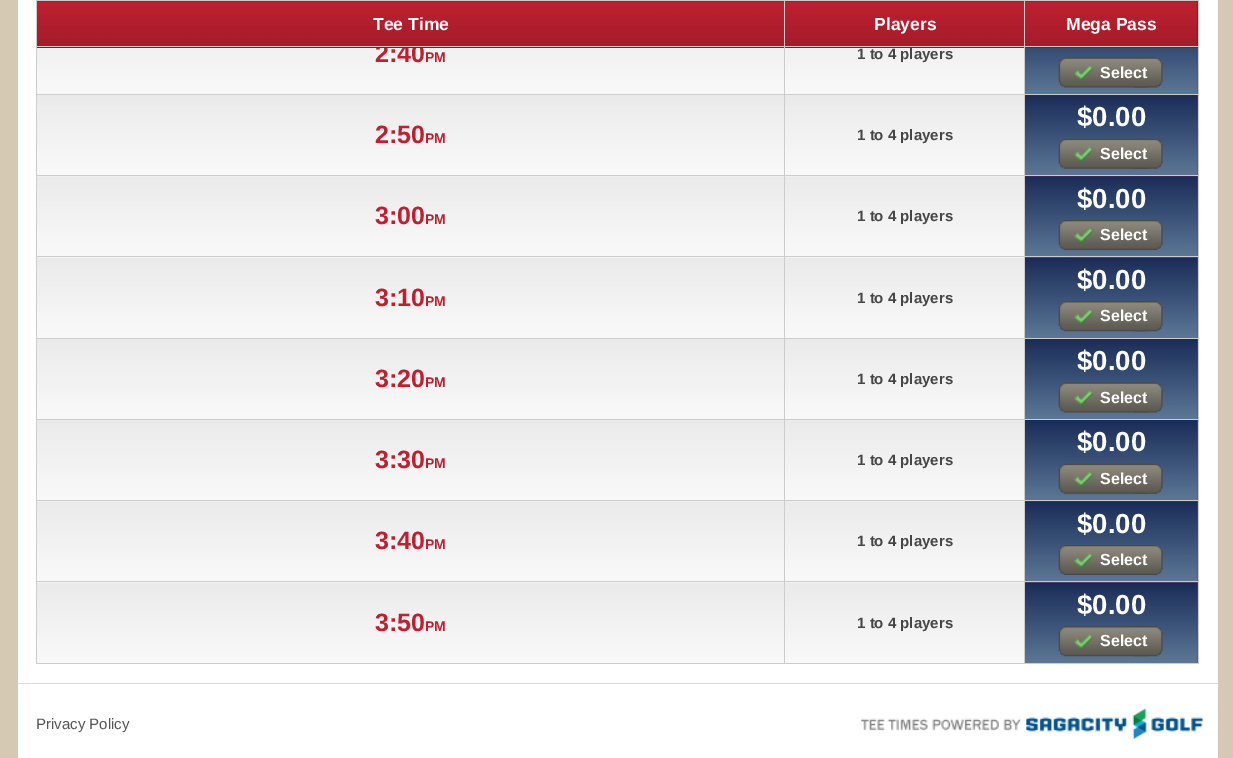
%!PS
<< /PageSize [1233 758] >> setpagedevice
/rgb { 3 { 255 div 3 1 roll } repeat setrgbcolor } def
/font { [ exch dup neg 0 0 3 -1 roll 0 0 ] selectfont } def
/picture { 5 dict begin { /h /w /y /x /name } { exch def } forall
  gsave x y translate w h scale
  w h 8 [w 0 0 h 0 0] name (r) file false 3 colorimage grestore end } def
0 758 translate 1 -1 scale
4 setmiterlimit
213 201 180 rgb
0 0 1233 758 rectfill
[
  [18 0 1200 758 255 255 255]
  [1198 0 1 664 204 204 204]
  [36 0 1163 1 204 204 204]
  [785 1 239 47 25 44 88]
] { aload pop rgb rectfill } forall
(img/2.rgb) 785 1 239 47 picture
1025 1 173 47 rectfill
(img/3.rgb) 1025 1 173 47 picture
204 204 204 rgb
36 663 1163 1 rectfill
36 48 1 616 rectfill
(img/4.rgb) 37 48 747 46 picture
(img/5.rgb) 785 48 239 46 picture
[
  [1024 94 175 1 204 204 204]
  [1024 175 175 1 204 204 204]
  [1025 176 173 82 190 32 47]
] { aload pop rgb rectfill } forall
(img/18.rgb) 1025 176 173 82 picture
[
  [1024 256 175 1 204 204 204]
  [1024 338 175 1 204 204 204]
  [1024 419 175 1 204 204 204]
  [1024 500 175 1 204 204 204]
  [1025 501 173 82 190 32 47]
] { aload pop rgb rectfill } forall
(img/36.rgb) 1025 501 173 82 picture
[
  [1024 581 175 1 204 204 204]
  [1024 581 1 83 204 204 204]
  [784 581 241 1 204 204 204]
  [1024 500 1 83 204 204 204]
  [784 500 241 1 204 204 204]
  [1024 419 1 82 204 204 204]
  [784 419 241 1 204 204 204]
  [1024 338 1 82 204 204 204]
  [784 338 241 1 204 204 204]
  [1024 256 1 83 204 204 204]
  [784 256 241 1 204 204 204]
  [1024 175 1 83 204 204 204]
  [784 175 241 1 204 204 204]
  [1024 94 1 82 204 204 204]
  [784 94 241 1 204 204 204]
  [784 581 1 83 204 204 204]
  [36 581 749 1 204 204 204]
  [784 500 1 83 204 204 204]
  [36 500 749 1 204 204 204]
  [784 419 1 82 204 204 204]
  [36 419 749 1 204 204 204]
  [784 338 1 82 204 204 204]
  [36 338 749 1 204 204 204]
  [784 256 1 83 204 204 204]
  [36 256 749 1 204 204 204]
  [784 175 1 83 204 204 204]
  [36 175 749 1 204 204 204]
  [784 94 1 82 204 204 204]
  [36 94 749 1 204 204 204]
  [784 48 1 47 204 204 204]
  [1197 48 1 46 190 32 47]
] { aload pop rgb rectfill } forall
(img/6.rgb) 1025 48 173 46 picture
204 204 204 rgb
1024 48 1 47 rectfill
(img/7.rgb) 1133 57 30 31 picture
(img/8.rgb) 1058 57 90 31 picture
(img/9.rgb) 1074 65 20 16 picture
(img/10.rgb) 37 95 747 80 picture
(img/11.rgb) 785 95 239 80 picture
190 32 47 rgb
1197 95 1 80 rectfill
(img/12.rgb) 1025 95 173 80 picture
(img/13.rgb) 1133 138 30 31 picture
(img/14.rgb) 1058 138 90 31 picture
(img/15.rgb) 1073 146 21 16 picture
(img/16.rgb) 37 176 747 80 picture
(img/17.rgb) 785 176 239 80 picture
(img/19.rgb) 1134 220 29 30 picture
(img/20.rgb) 1058 220 76 30 picture
(img/21.rgb) 1073 227 21 16 picture
(img/22.rgb) 37 257 747 81 picture
(img/23.rgb) 785 257 239 81 picture
1197 258 1 80 rectfill
(img/24.rgb) 1025 257 173 81 picture
(img/25.rgb) 1133 301 30 31 picture
(img/26.rgb) 1058 301 90 31 picture
(img/27.rgb) 1074 308 20 16 picture
(img/28.rgb) 37 339 747 80 picture
(img/29.rgb) 785 339 239 80 picture
1197 339 1 80 rectfill
(img/30.rgb) 1025 339 173 80 picture
(img/31.rgb) 1133 382 30 31 picture
(img/32.rgb) 1058 382 90 31 picture
(img/9.rgb) 1074 390 20 16 picture
(img/10.rgb) 37 420 747 80 picture
(img/11.rgb) 785 420 239 80 picture
1197 420 1 80 rectfill
(img/33.rgb) 1025 420 173 80 picture
(img/34.rgb) 1133 463 30 31 picture
(img/35.rgb) 1058 463 90 31 picture
(img/15.rgb) 1073 471 21 16 picture
(img/16.rgb) 37 501 747 80 picture
(img/17.rgb) 785 501 239 80 picture
(img/37.rgb) 1134 545 29 30 picture
(img/38.rgb) 1058 545 76 30 picture
(img/21.rgb) 1073 552 21 16 picture
(img/22.rgb) 37 582 747 81 picture
(img/23.rgb) 785 582 239 81 picture
1197 583 1 80 rectfill
(img/39.rgb) 1025 582 173 81 picture
(img/25.rgb) 1133 626 30 31 picture
(img/26.rgb) 1058 626 90 31 picture
(img/27.rgb) 1074 633 20 16 picture
221 221 221 rgb
18 683 1200 1 rectfill
(img/40.rgb) 861 708 342 31 picture
/LiberationSans-Bold 17.5 font
255 255 255 rgb
874 30 moveto (Players) show
1066 30 moveto (Mega Pass) show
/LiberationSans-Bold 25 font
190 32 47 rgb
375 62 moveto (2:40) show
25 44 88 rgb
37 1 747 47 rectfill
(img/1.rgb) 37 1 747 47 picture
/LiberationSans-Bold 17.5 font
255 255 255 rgb
373 30 moveto (Tee Time) show
[
  [36 46 1163 1 204 204 204]
  [784 0 1 48 204 204 204]
  [1024 0 1 48 204 204 204]
  [36 0 1 48 204 204 204]
] { aload pop rgb rectfill } forall
/LiberationSans-Bold 14 font
190 32 47 rgb
425 62 moveto (PM) show
/LiberationSans-Bold 15 font
70 70 70 rgb
857 59 moveto (1 to 4 players) show
/LiberationSans-Bold 16 font
255 255 255 rgb
1100 78 moveto (Select) show
/LiberationSans-Bold 25 font
190 32 47 rgb
375 143 moveto (2:50) show
/LiberationSans-Bold 14 font
425 143 moveto (PM) show
/LiberationSans-Bold 15 font
70 70 70 rgb
857 140 moveto (1 to 4 players) show
/LiberationSans-Bold 27.5 font
255 255 255 rgb
1077 126 moveto ($0.00) show
/LiberationSans-Bold 16 font
1100 159 moveto (Select) show
/LiberationSans-Bold 25 font
190 32 47 rgb
375 224 moveto (3:00) show
/LiberationSans-Bold 14 font
425 224 moveto (PM) show
/LiberationSans-Bold 15 font
70 70 70 rgb
857 221 moveto (1 to 4 players) show
/LiberationSans-Bold 27.5 font
255 255 255 rgb
1077 208 moveto ($0.00) show
/LiberationSans-Bold 16 font
1100 240 moveto (Select) show
/LiberationSans-Bold 25 font
190 32 47 rgb
375 306 moveto (3:10) show
/LiberationSans-Bold 14 font
425 306 moveto (PM) show
/LiberationSans-Bold 15 font
70 70 70 rgb
857 303 moveto (1 to 4 players) show
/LiberationSans-Bold 27.5 font
255 255 255 rgb
1077 289 moveto ($0.00) show
/LiberationSans-Bold 16 font
1100 321 moveto (Select) show
/LiberationSans-Bold 25 font
190 32 47 rgb
375 387 moveto (3:20) show
/LiberationSans-Bold 14 font
425 387 moveto (PM) show
/LiberationSans-Bold 15 font
70 70 70 rgb
857 384 moveto (1 to 4 players) show
/LiberationSans-Bold 27.5 font
255 255 255 rgb
1077 370 moveto ($0.00) show
/LiberationSans-Bold 16 font
1100 403 moveto (Select) show
/LiberationSans-Bold 25 font
190 32 47 rgb
375 468 moveto (3:30) show
/LiberationSans-Bold 14 font
425 468 moveto (PM) show
/LiberationSans-Bold 15 font
70 70 70 rgb
857 465 moveto (1 to 4 players) show
/LiberationSans-Bold 27.5 font
255 255 255 rgb
1077 451 moveto ($0.00) show
/LiberationSans-Bold 16 font
1100 484 moveto (Select) show
/LiberationSans-Bold 25 font
190 32 47 rgb
375 549 moveto (3:40) show
/LiberationSans-Bold 14 font
425 549 moveto (PM) show
/LiberationSans-Bold 15 font
70 70 70 rgb
857 546 moveto (1 to 4 players) show
/LiberationSans-Bold 27.5 font
255 255 255 rgb
1077 533 moveto ($0.00) show
/LiberationSans-Bold 16 font
1100 565 moveto (Select) show
/LiberationSans-Bold 25 font
190 32 47 rgb
375 631 moveto (3:50) show
/LiberationSans-Bold 14 font
425 631 moveto (PM) show
/LiberationSans-Bold 15 font
70 70 70 rgb
857 628 moveto (1 to 4 players) show
/LiberationSans-Bold 27.5 font
255 255 255 rgb
1077 614 moveto ($0.00) show
/LiberationSans-Bold 16 font
1100 646 moveto (Select) show
/LiberationSans-Regular 15 font
85 85 85 rgb
36 729 moveto (Privacy Policy) show
showpage
